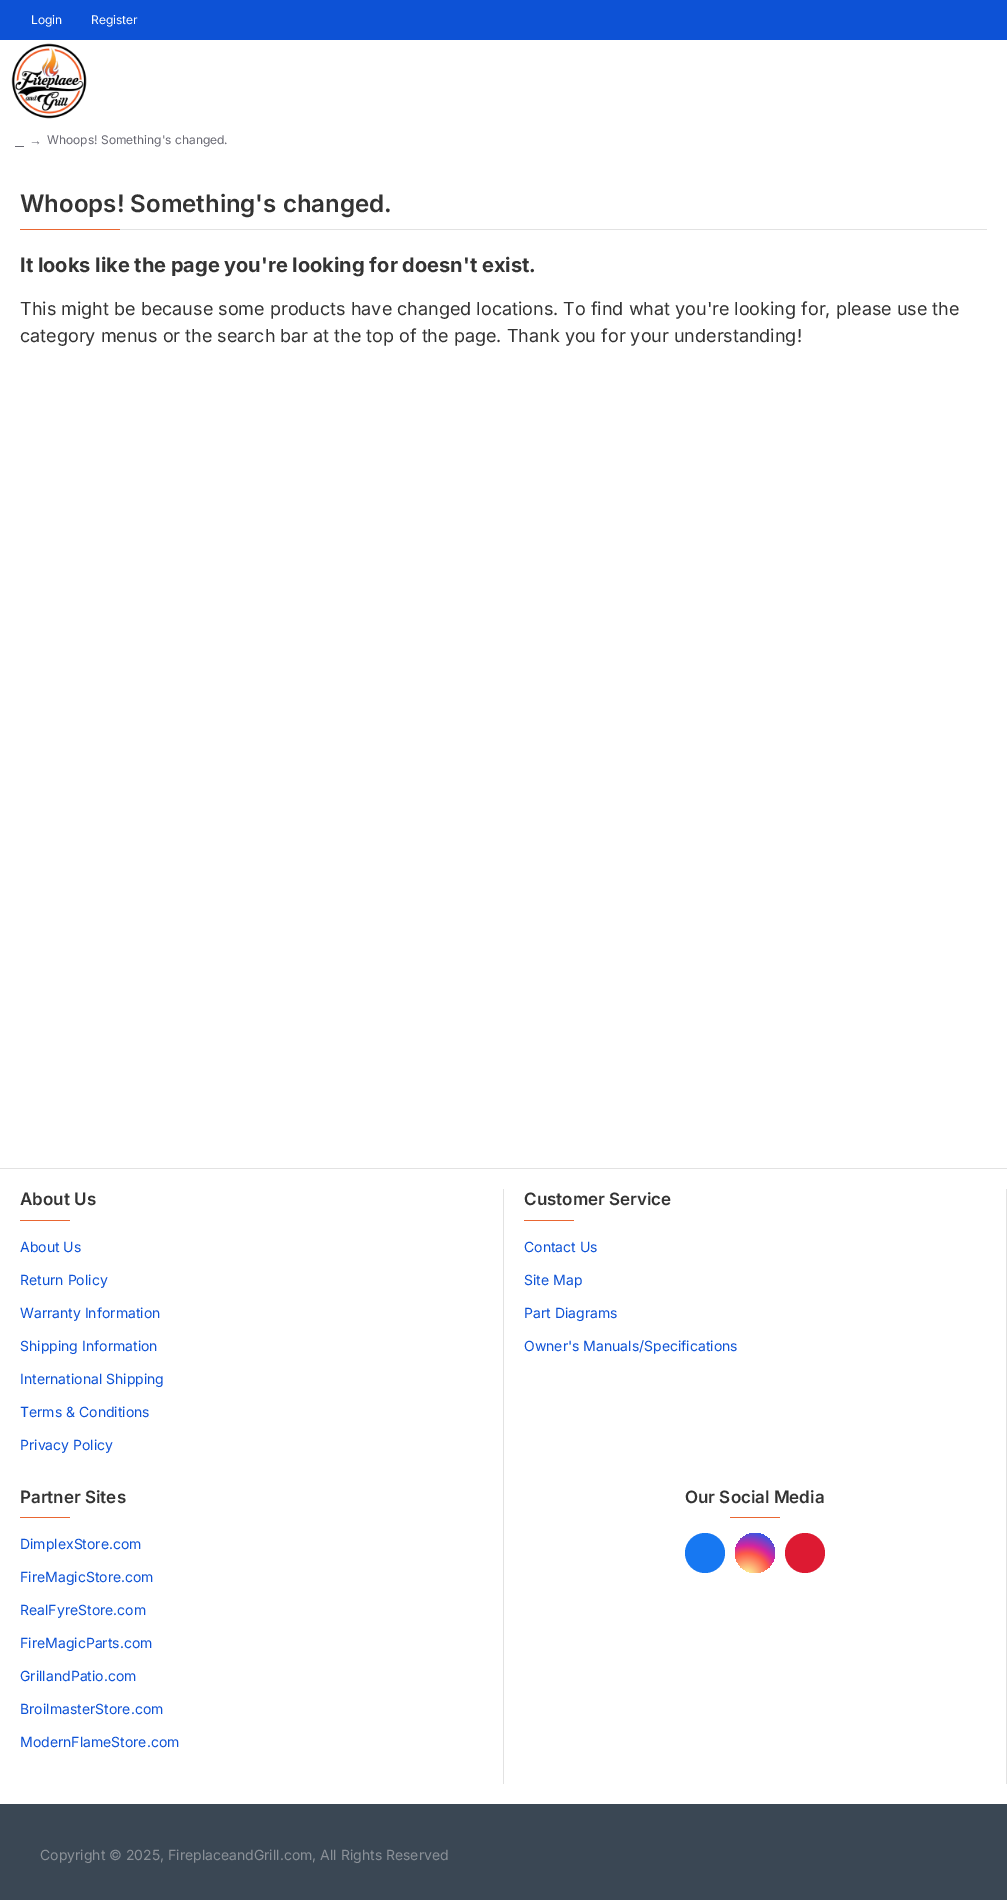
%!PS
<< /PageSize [1007 1900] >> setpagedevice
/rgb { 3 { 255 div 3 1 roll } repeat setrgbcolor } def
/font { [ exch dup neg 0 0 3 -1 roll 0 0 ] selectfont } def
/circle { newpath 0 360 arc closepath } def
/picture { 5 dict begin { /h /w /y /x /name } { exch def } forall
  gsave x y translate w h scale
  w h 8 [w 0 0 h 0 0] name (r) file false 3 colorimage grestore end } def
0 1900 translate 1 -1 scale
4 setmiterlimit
255 255 255 rgb
0 0 1007 1900 rectfill
13 82 214 rgb
0 0 1007 40 rectfill
(img/1.rgb) 11 43 76 76 picture
[
  [15 146 9 1 105 105 115]
  [120 229 867 1 226 226 226]
  [20 229 100 1 233 102 49]
  [0 1168 1007 1 226 226 226]
  [503 1189 1 595 226 226 226]
  [20 1220 50 1 233 102 49]
  [1006 1189 1 595 226 226 226]
  [524 1220 50 1 233 102 49]
  [20 1517 50 1 233 102 49]
  [730 1517 50 1 233 102 49]
] { aload pop rgb rectfill } forall
23 120 242 rgb
705 1553 20 circle fill
gsave 755 1553 20 circle clip newpath 747 1576 translate 51 51 scale
<< /ShadingType 3 /ColorSpace /DeviceRGB /Coords [0 0 0 0 0 1] /Extend [true true] /Function << /FunctionType 3 /Domain [0 1] /Functions [<< /FunctionType 2 /Domain [0 1] /C0 [0.992 0.957 0.592] /C1 [0.992 0.957 0.592] /N 1 >> << /FunctionType 2 /Domain [0 1] /C0 [0.992 0.957 0.592] /C1 [0.992 0.349 0.286] /N 1 >> << /FunctionType 2 /Domain [0 1] /C0 [0.992 0.349 0.286] /C1 [0.839 0.141 0.624] /N 1 >> << /FunctionType 2 /Domain [0 1] /C0 [0.839 0.141 0.624] /C1 [0.157 0.353 0.922] /N 1 >> << /FunctionType 2 /Domain [0 1] /C0 [0.157 0.353 0.922] /C1 [0.157 0.353 0.922] /N 1 >>] /Bounds [0.05 0.45 0.6 0.9] /Encode [0 1 0 1 0 1 0 1 0 1] >> >> shfill grestore
221 26 50 rgb
805 1553 20 circle fill
58 71 84 rgb
0 1804 1007 96 rectfill
/Inter-Regular 12 font
255 255 255 rgb
31 24 moveto (Login) show
91 24 moveto (Register) show
/LiberationSerif-Regular 13 font
105 105 115 rgb
29 145 moveto (→) show
/Inter-Regular 12 font
47 144 moveto (Whoops! Something's changed.) show
/Inter-SemiBold 24 font
51 51 51 rgb
20 212 moveto (Whoops! Something's changed.) show
/Inter-Bold 20 font
20 272 moveto (It looks like the page you're looking for doesn't exist.) show
/Inter-Regular 18 font
20 315 moveto (This might be because some products have changed locations. To find what you're looking for, please use the) show
20 342 moveto (category menus or the search bar at the top of the page. Thank you for your understanding!) show
/Inter-SemiBold 17 font
20 1205 moveto (About Us) show
/Inter-Regular 14 font
13 82 214 rgb
[
  [(About Us) 20 1252]
  [(Return Policy) 20 1285]
  [(Warranty Information) 20 1318]
  [(Shipping Information) 20 1351]
  [(International Shipping) 20 1384]
  [(Terms & Conditions) 20 1417]
  [(Privacy Policy) 20 1450]
] { aload pop moveto show } forall
/Inter-SemiBold 17 font
51 51 51 rgb
524 1205 moveto (Customer Service) show
/Inter-Regular 14 font
13 82 214 rgb
[
  [(Contact Us) 524 1252]
  [(Site Map) 524 1285]
  [(Part Diagrams) 524 1318]
  [(Owner's Manuals/Specifications) 524 1351]
] { aload pop moveto show } forall
/Inter-SemiBold 17 font
51 51 51 rgb
20 1503 moveto (Partner Sites) show
/Inter-Regular 14 font
13 82 214 rgb
[
  [(DimplexStore.com) 20 1549]
  [(FireMagicStore.com) 20 1582]
  [(RealFyreStore.com) 20 1615]
  [(FireMagicParts.com) 20 1648]
  [(GrillandPatio.com) 20 1681]
  [(BroilmasterStore.com) 20 1714]
  [(ModernFlameStore.com) 20 1747]
] { aload pop moveto show } forall
/Inter-SemiBold 17 font
51 51 51 rgb
685 1503 moveto (Our Social Media) show
/Inter-Regular 14 font
139 145 152 rgb
40 1860 moveto (Copyright © 2025, FireplaceandGrill.com, All Rights Reserved) show
showpage
